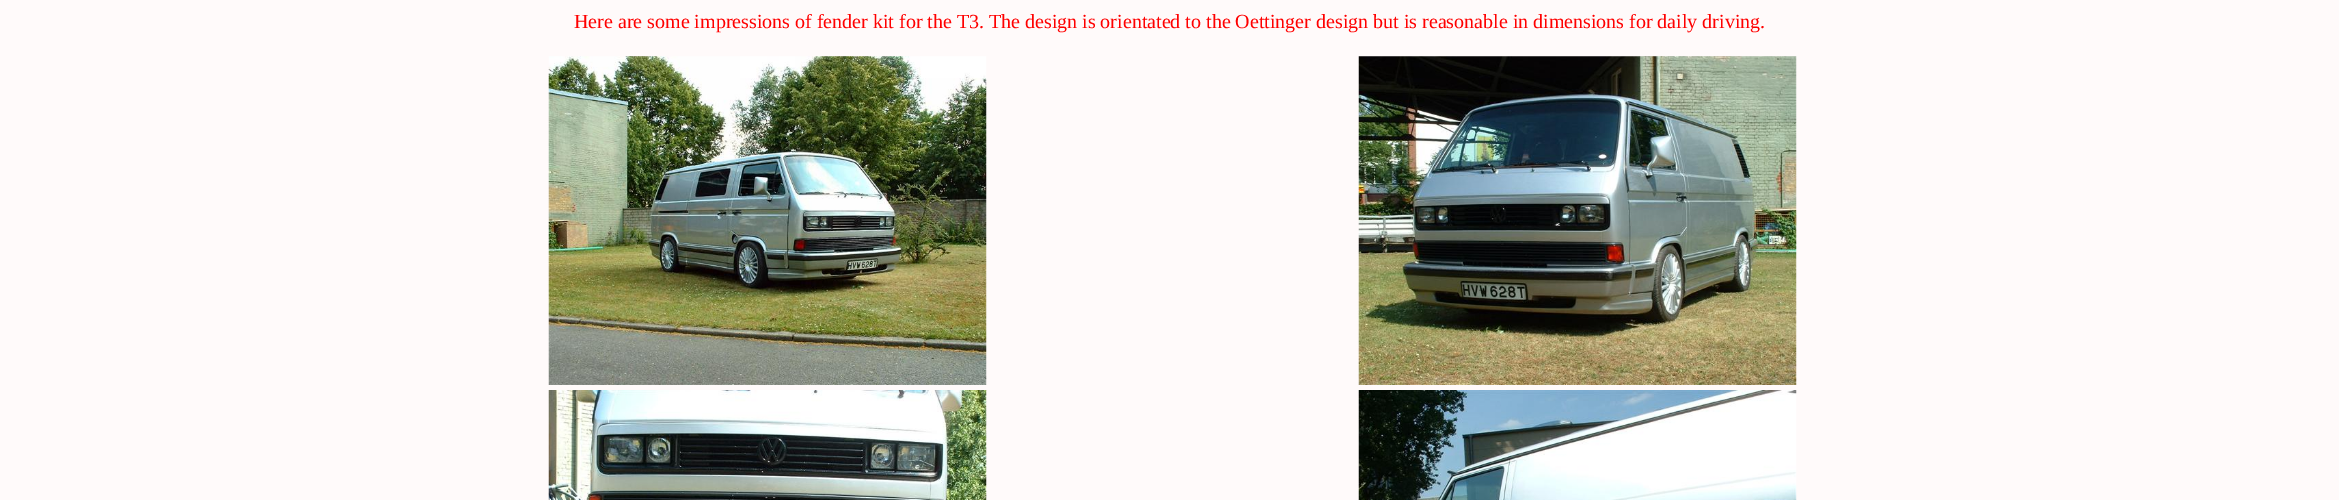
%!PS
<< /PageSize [2339 500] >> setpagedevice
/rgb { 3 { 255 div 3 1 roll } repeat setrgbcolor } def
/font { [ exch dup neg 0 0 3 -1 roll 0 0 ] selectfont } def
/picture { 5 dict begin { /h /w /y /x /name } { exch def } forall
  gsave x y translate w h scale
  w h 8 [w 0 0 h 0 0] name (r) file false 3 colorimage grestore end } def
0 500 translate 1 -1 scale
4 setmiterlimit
255 250 250 rgb
0 0 2339 500 rectfill
(img/1.rgb) 548 56 439 329 picture
(img/2.rgb) 1358 56 439 329 picture
(img/3.rgb) 548 390 439 110 picture
(img/4.rgb) 1358 390 439 110 picture
/LiberationSerif-Regular 20 font
255 0 0 rgb
574 28 moveto (Here are some impressions of fender kit for the T3. The design is orientated to the Oettinger design but is reasonable in dimensions for daily driving.) show
showpage
